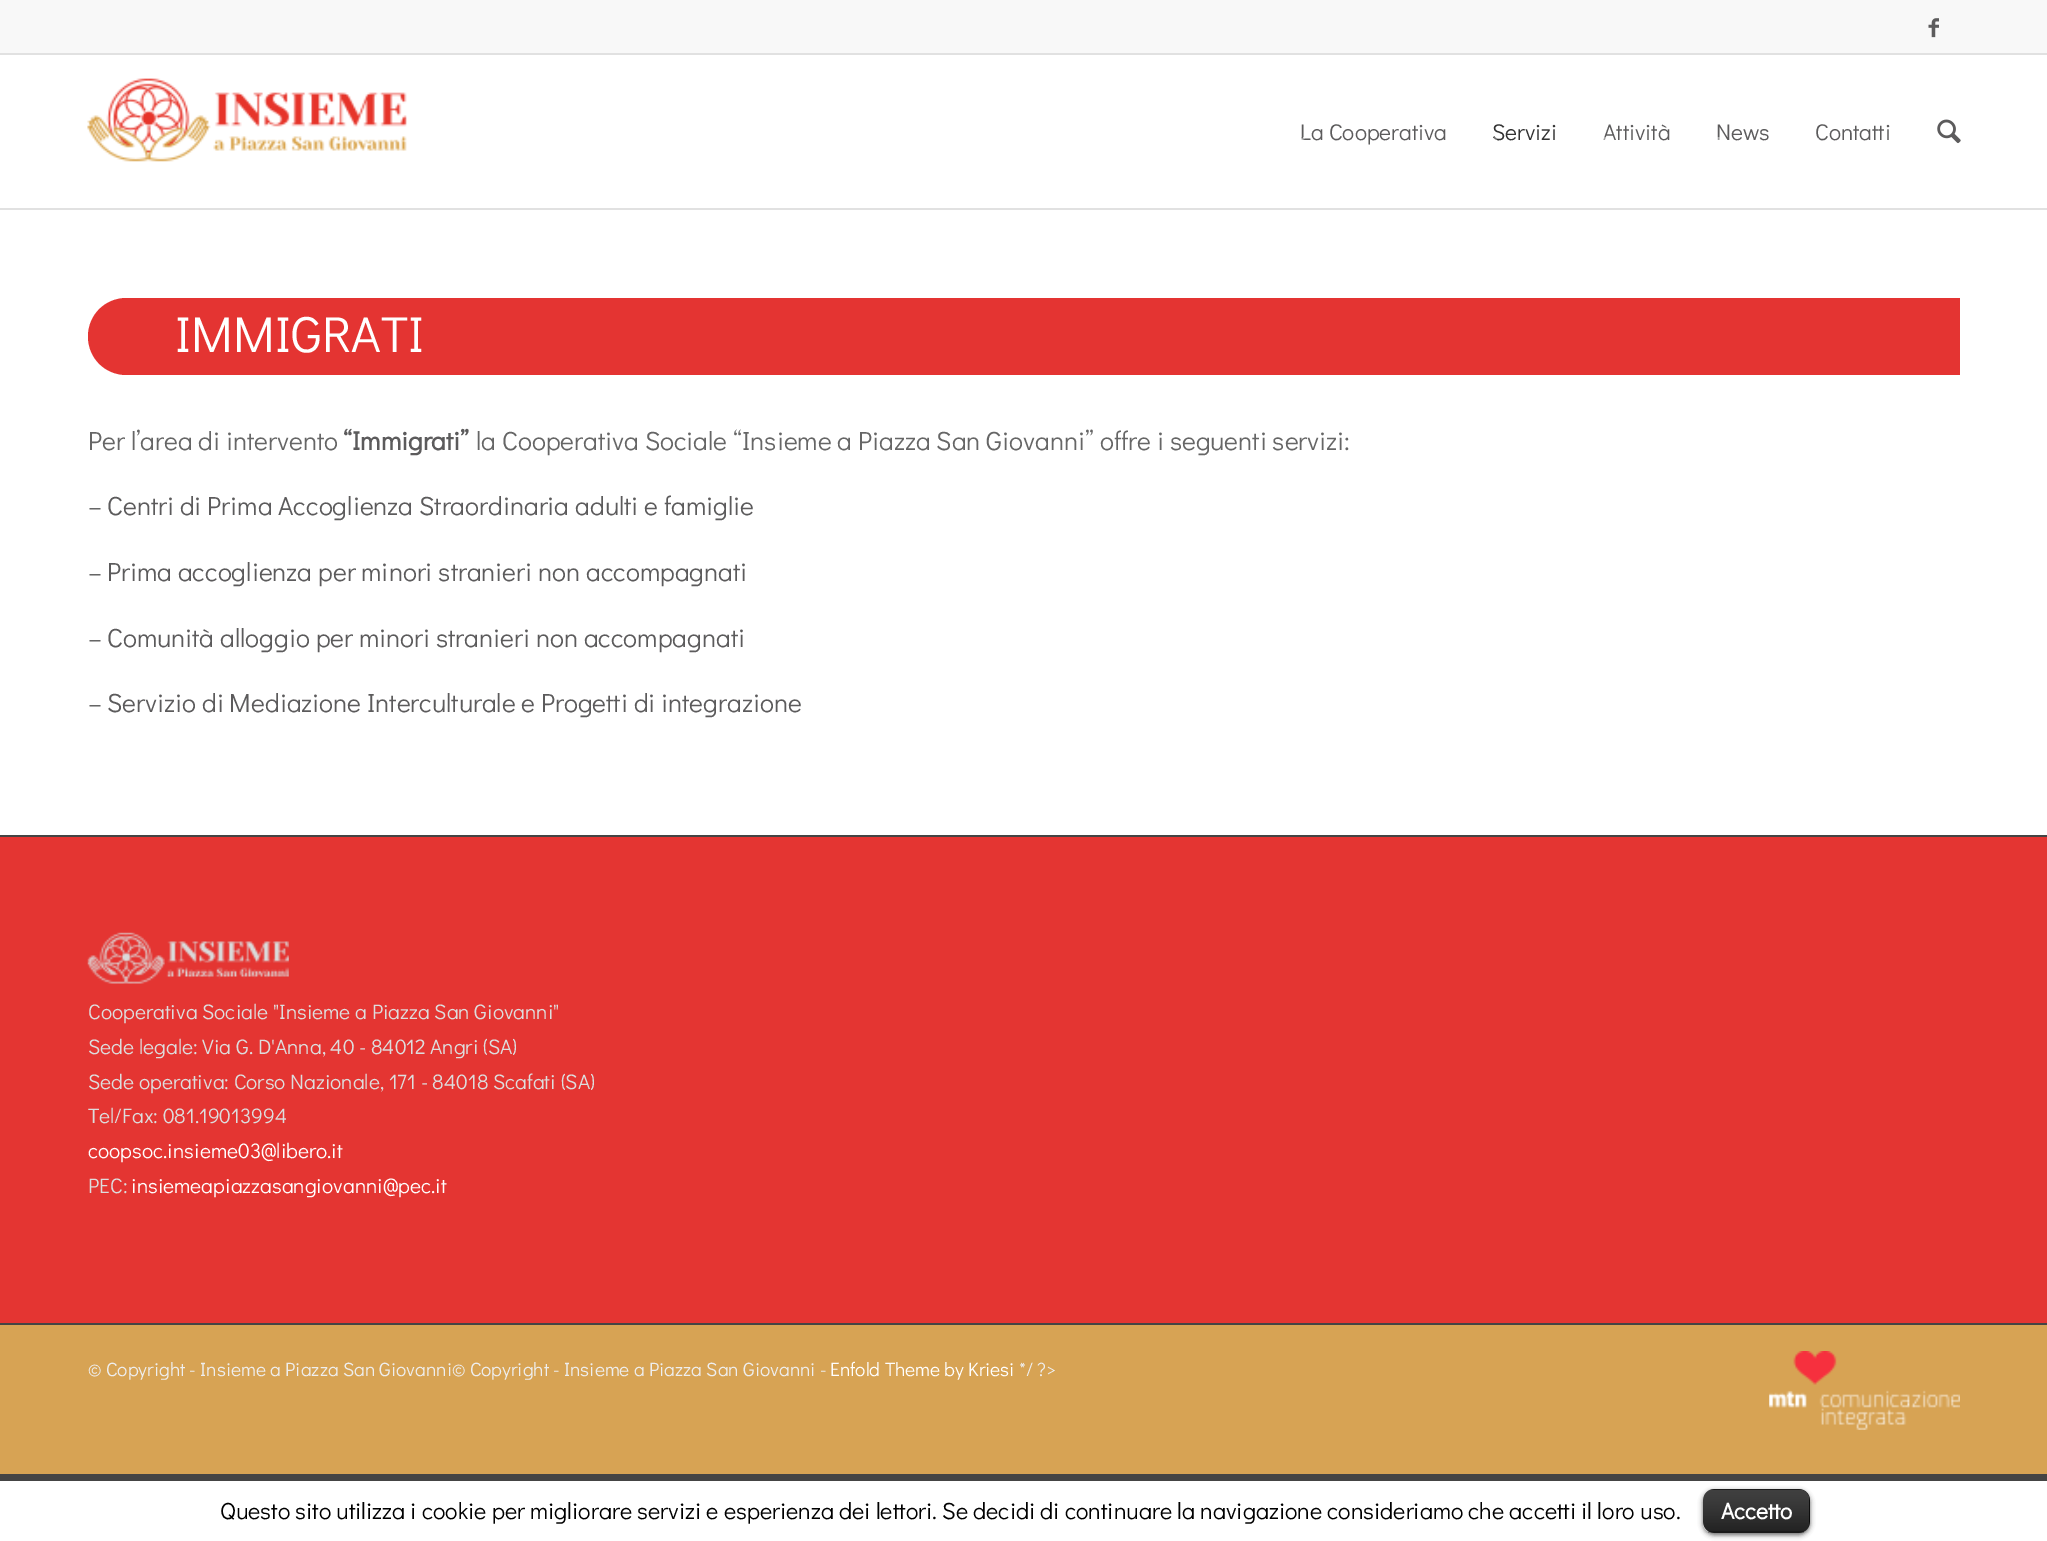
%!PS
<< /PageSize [2047 1541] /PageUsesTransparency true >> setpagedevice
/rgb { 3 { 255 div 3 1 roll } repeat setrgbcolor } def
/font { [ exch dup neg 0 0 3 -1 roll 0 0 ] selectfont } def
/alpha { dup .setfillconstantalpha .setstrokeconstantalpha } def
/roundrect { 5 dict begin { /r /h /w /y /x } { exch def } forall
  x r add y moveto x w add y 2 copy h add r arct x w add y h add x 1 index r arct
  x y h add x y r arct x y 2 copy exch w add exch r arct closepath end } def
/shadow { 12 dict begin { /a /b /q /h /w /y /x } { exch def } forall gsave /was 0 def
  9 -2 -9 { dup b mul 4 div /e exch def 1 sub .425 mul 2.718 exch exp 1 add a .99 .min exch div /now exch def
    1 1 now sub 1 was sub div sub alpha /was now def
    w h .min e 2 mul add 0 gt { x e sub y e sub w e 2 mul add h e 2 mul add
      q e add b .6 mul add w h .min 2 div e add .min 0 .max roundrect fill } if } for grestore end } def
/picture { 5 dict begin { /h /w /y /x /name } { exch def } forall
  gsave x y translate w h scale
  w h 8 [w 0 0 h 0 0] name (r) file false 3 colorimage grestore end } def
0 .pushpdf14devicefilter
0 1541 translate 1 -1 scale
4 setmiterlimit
215 163 84 rgb
0 0 2047 1541 rectfill
248 248 248 rgb
0 0 2047 53 rectfill
225 225 225 rgb
0 53 2047 2 rectfill
(img/1.rgb) 1928 18 11 20 picture
0 208 2047 2 rectfill
255 255 255 rgb
0 55 2047 153 rectfill
(img/2.rgb) 87 78 320 84 picture
(img/4.rgb) 1937 119 24 25 picture
0 210 2047 625 rectfill
228 52 50 rgb
126.5 298 moveto 1960 298 lineto 1960 375 lineto 126.5 375 lineto 105 375 88 358 88 336.5 curveto 88 315 105 298 126.5 298 curveto closepath fill
228 53 50 rgb
0 837 2047 486 rectfill
68 68 68 rgb
0 835 2047 2 rectfill
(img/5.rgb) 87 932 202 52 picture
0 1323 2047 2 rectfill
(img/6.rgb) 1769 1351 191 79 picture
255 255 255 rgb
0 1481 2047 60 rectfill
68 68 68 rgb
0 1474 2047 7 rectfill
0 0 0 rgb
1703 1491 107 44 11 2.5 0.6 shadow
1703 1489 107 44 11 roundrect fill
(img/7.rgb) 1703 1489 107 44 picture
0.25 alpha
1708 1531 96 2 rectfill
/DidactGothic-Regular 22.75 font
1 alpha
92 91 92 rgb
1300 140 moveto (La Cooperativa) show
(img/3.rgb) 1301 137 4 3 picture
51 51 51 rgb
1492 140 moveto (Servizi) show
0.29 alpha
255 255 255 rgb
1494 137 3 3 rectfill
1 alpha
92 91 92 rgb
1603 140 moveto (Attività) show
0.43 alpha
255 255 255 rgb
1603 137 3 3 rectfill
1 alpha
92 91 92 rgb
1716 140 moveto (News) show
0.4 alpha
255 255 255 rgb
1717 137 3 3 rectfill
1 alpha
92 91 92 rgb
1815 140 moveto (Contatti) show
190 189 190 rgb
1818 138 1 1 rectfill
/DidactGothic-Regular 50.75 font
255 255 255 rgb
175 352 moveto (IMMIGRATI) show
/DidactGothic-Regular 26.25 font
102 102 102 rgb
88 450 moveto (Per l’area di intervento) show
/DidactGothic-Bold 26.25 font
92 91 92 rgb
343 450 moveto (“Immigrati”) show
/DidactGothic-Regular 26.25 font
102 102 102 rgb
476 450 moveto (la Cooperativa Sociale “Insieme a Piazza San Giovanni” offre i seguenti servizi:) show
88 515 moveto (–) show
92 91 92 rgb
107 515 moveto (Centri di Prima Accoglienza Straordinaria adulti e famiglie) show
102 102 102 rgb
88 581 moveto (–) show
92 91 92 rgb
107 581 moveto (Prima accoglienza per minori stranieri non accompagnati) show
102 102 102 rgb
88 647 moveto (–) show
92 91 92 rgb
107 647 moveto (Comunità alloggio per minori stranieri non accompagnati) show
102 102 102 rgb
88 712 moveto (–) show
92 91 92 rgb
107 712 moveto (Servizio di Mediazione Interculturale e Progetti di integrazione) show
/DidactGothic-Regular 21 font
221 221 221 rgb
[
  [(Cooperativa Sociale "Insieme a Piazza San Giovanni") 88 1019]
  [(Sede legale: Via G. D'Anna, 40 - 84012 Angri \(SA\)) 88 1054]
  [(Sede operativa: Corso Nazionale, 171 - 84018 Scafati \(SA\)) 88 1089]
  [(Tel/Fax: 081.19013994) 88 1123]
] { aload pop moveto show } forall
255 255 255 rgb
88 1158 moveto (coopsoc.insieme03@libero.it) show
221 221 221 rgb
88 1193 moveto (PEC:) show
255 255 255 rgb
131 1193 moveto (insiemeapiazzasangiovanni@pec.it) show
/DidactGothic-Regular 19.25 font
238 238 238 rgb
88 1376 moveto (© Copyright - Insieme a Piazza San Giovanni© Copyright - Insieme a Piazza San Giovanni -) show
255 255 255 rgb
830 1376 moveto (Enfold Theme by Kriesi) show
238 238 238 rgb
1019 1376 moveto (*/ ?>) show
/DidactGothic-Regular 23.33 font
0 0 0 rgb
220 1519 moveto (Questo sito utilizza i cookie per migliorare servizi e esperienza dei lettori. Se decidi di continuare la navigazione consideriamo che accetti il loro uso.) show
/DidactGothic-Bold 22.75 font
255 255 255 rgb
1721 1519 moveto (Accetto) show
.poppdf14devicefilter showpage
